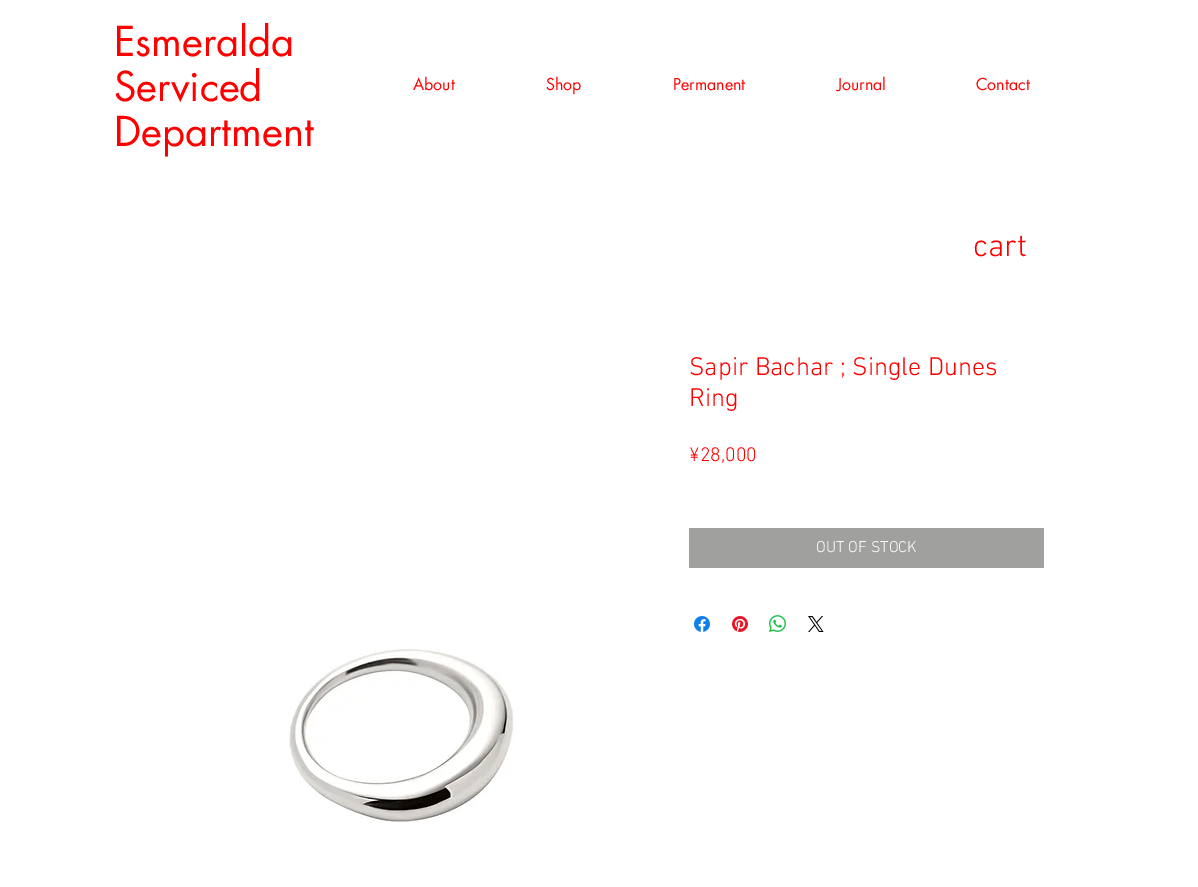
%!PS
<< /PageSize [1198 887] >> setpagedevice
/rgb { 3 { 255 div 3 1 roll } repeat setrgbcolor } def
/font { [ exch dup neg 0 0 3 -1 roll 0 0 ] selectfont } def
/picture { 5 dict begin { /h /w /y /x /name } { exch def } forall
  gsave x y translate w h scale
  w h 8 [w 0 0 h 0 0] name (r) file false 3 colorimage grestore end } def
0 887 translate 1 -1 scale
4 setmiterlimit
255 255 255 rgb
0 0 1198 887 rectfill
160 160 159 rgb
689 528 355 40 rectfill
(img/1.rgb) 694 616 16 16 picture
(img/2.rgb) 732 616 16 16 picture
(img/3.rgb) 769 615 17 17 picture
(img/4.rgb) 808 616 16 16 picture
(img/5.rgb) 287 649 228 173 picture
/futura-Regular 40 font
255 0 0 rgb
[
  [(Esmeralda) 114 56]
  [(Serviced) 114 101]
  [(Department) 114 146]
] { aload pop moveto show } forall
/futura-Regular 16 font
[
  [(About) 413 90]
  [(Shop) 546 90]
  [(Permanent) 673 90]
  [(Journal) 837 90]
  [(Contact) 976 90]
] { aload pop moveto show } forall
/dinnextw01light-Light 32 font
973 256 moveto (cart) show
/dinnextw01light-Light 26 font
689 375 moveto (Sapir Bachar ; Single Dunes) show
689 406 moveto (Ring) show
/dinnextw01light-Light 20 font
689 461 moveto (¥28,000) show
/dinnextw01light-Light 16 font
255 255 255 rgb
816 552 moveto (OUT OF STOCK) show
showpage
